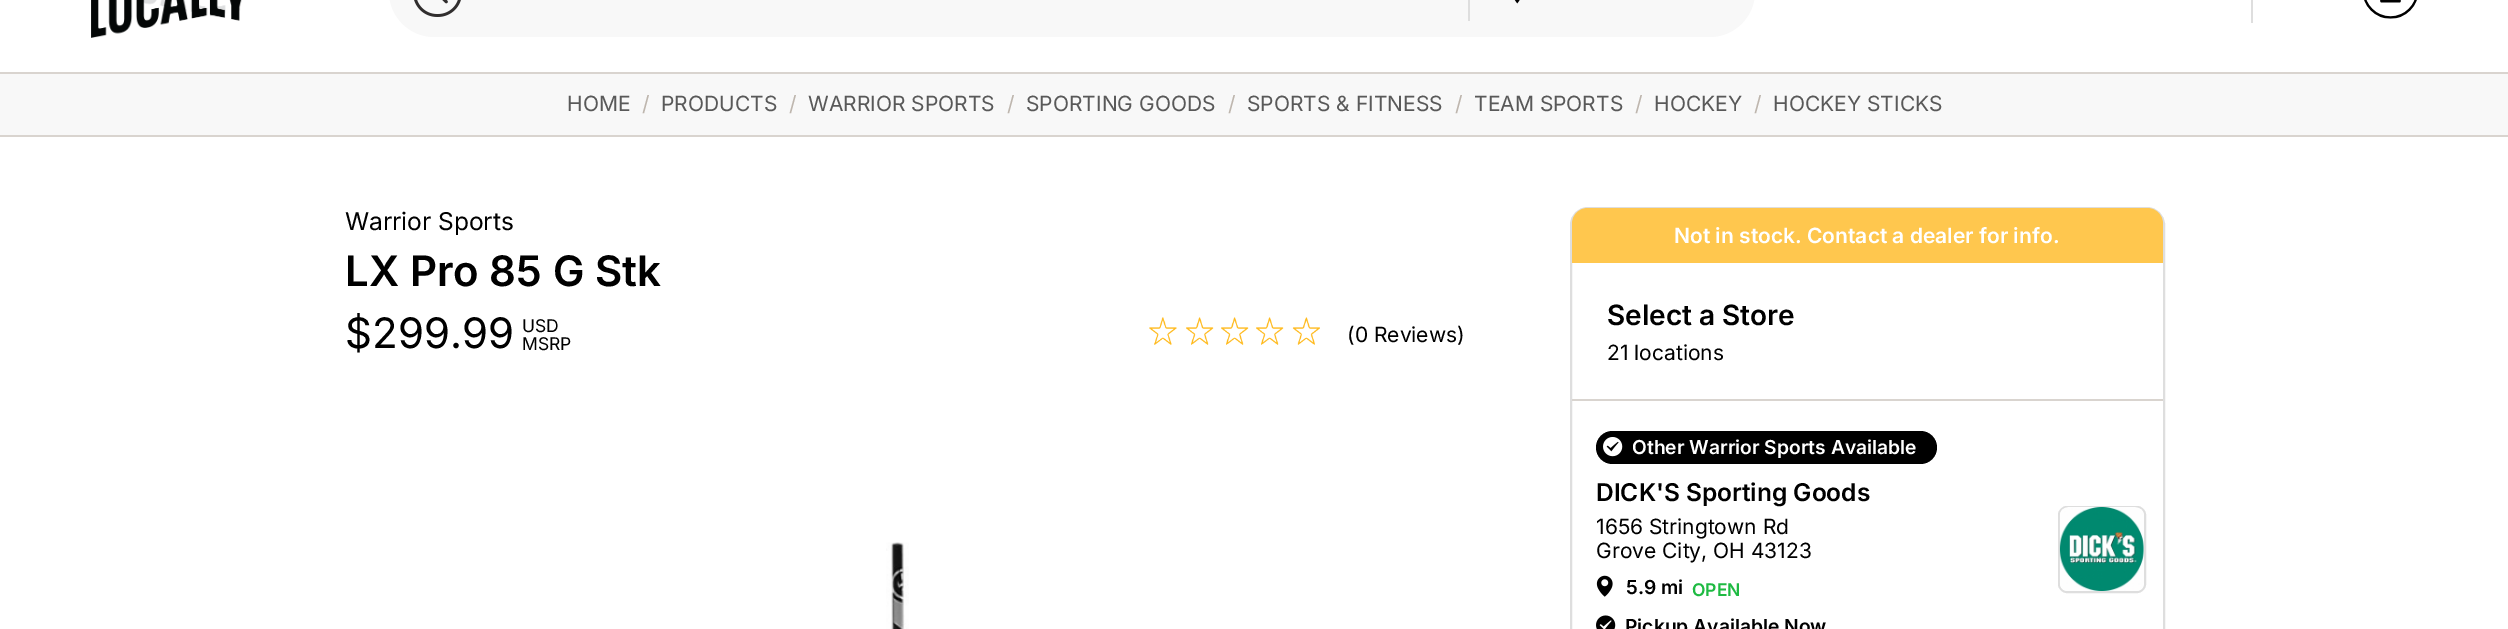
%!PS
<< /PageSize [2508 629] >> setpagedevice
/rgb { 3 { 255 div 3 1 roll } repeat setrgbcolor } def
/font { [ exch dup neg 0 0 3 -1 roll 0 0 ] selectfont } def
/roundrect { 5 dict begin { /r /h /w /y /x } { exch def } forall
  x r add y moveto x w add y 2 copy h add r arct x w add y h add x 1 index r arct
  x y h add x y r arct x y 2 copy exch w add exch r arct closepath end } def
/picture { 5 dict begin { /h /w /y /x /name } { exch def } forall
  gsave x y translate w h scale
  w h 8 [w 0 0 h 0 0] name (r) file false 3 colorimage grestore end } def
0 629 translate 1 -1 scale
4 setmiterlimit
255 255 255 rgb
0 0 2508 629 rectfill
217 212 207 rgb
0 72 2508 2 rectfill
(img/1.rgb) 91 0 151 38 picture
248 248 248 rgb
389 -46 1366 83 45.5 roundrect fill
(img/2.rgb) 414 0 47 17 picture
222 222 222 rgb
1468 0 2 21 rectfill
(img/3.rgb) 1514 0 6 4 picture
2251 0 2 23 rectfill
(img/4.rgb) 2364 0 53 19 picture
248 248 248 rgb
0 74 2508 61 rectfill
217 212 207 rgb
0 135 2508 2 rectfill
(img/5.rgb) 1149 317 28 28 picture
(img/6.rgb) 1186 317 28 28 picture
(img/6.rgb) 1221 317 28 28 picture
(img/6.rgb) 1256 317 28 28 picture
(img/7.rgb) 1292 317 28 28 picture
(img/8.rgb) 886 542 23 87 picture
222 222 222 rgb
2 setlinewidth
1571 208 593 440 17 roundrect stroke
255 199 78 rgb
1588 208 moveto 2147 208 lineto 2156 208 2163 215 2163 224 curveto 2163 263 lineto 1572 263 lineto 1572 224 lineto 1572 215 1579 208 1588 208 curveto closepath fill
217 212 207 rgb
1572 399 591 2 rectfill
0 0 0 rgb
1596 431 341 33 16.5 roundrect fill
(img/9.rgb) 1603 437 20 20 picture
(img/10.rgb) 1596 575 17 22 picture
(img/11.rgb) 1596 615 20 14 picture
222 222 222 rgb
2059 507 86 85 8 roundrect stroke
(img/12.rgb) 2059 507 85 84 picture
/Inter-Regular 21 font
89 89 89 rgb
567 111 moveto (HOME) show
190 182 174 rgb
642 111 moveto (/) show
89 89 89 rgb
661 111 moveto (PRODUCTS) show
190 182 174 rgb
789 111 moveto (/) show
89 89 89 rgb
808 111 moveto (WARRIOR SPORTS) show
190 182 174 rgb
1007 111 moveto (/) show
89 89 89 rgb
1026 111 moveto (SPORTING GOODS) show
190 182 174 rgb
1228 111 moveto (/) show
89 89 89 rgb
1247 111 moveto (SPORTS & FITNESS) show
190 182 174 rgb
1455 111 moveto (/) show
89 89 89 rgb
1474 111 moveto (TEAM SPORTS) show
190 182 174 rgb
1635 111 moveto (/) show
89 89 89 rgb
1654 111 moveto (HOCKEY) show
190 182 174 rgb
1754 111 moveto (/) show
89 89 89 rgb
1773 111 moveto (HOCKEY STICKS) show
/Inter-Regular 24.5 font
0 0 0 rgb
345 230 moveto (Warrior Sports) show
/Inter-SemiBold 42 font
345 286 moveto (LX Pro 85 G Stk) show
/Inter-Regular 42 font
345 348 moveto ($299.99) show
/Inter-Regular 17.5 font
522 332 moveto (USD) show
522 350 moveto (MSRP) show
/Inter-Regular 21 font
1347 342 moveto (\(0 Reviews\)) show
/Inter-SemiBold 21 font
255 255 255 rgb
1674 243 moveto (Not in stock. Contact a dealer for info.) show
/Inter-SemiBold 28 font
0 0 0 rgb
1607 325 moveto (Select a Store) show
/Inter-Regular 21 font
1607 360 moveto (21 locations) show
/Inter-SemiBold 19.25 font
255 255 255 rgb
1632 454 moveto (Other Warrior Sports Available) show
/Inter-SemiBold 24.5 font
0 0 0 rgb
1596 501 moveto (DICK'S Sporting Goods) show
/Inter-Regular 21 font
1596 534 moveto (1656 Stringtown Rd) show
1596 558 moveto (Grove City, OH 43123) show
/Inter-SemiBold 19.25 font
1626 594 moveto (5.9 mi) show
/Inter-SemiBold 17.5 font
30 186 66 rgb
1692 596 moveto (OPEN) show
/Inter-SemiBold 19.25 font
0 0 0 rgb
1625 633 moveto (Pickup Available Now) show
showpage
